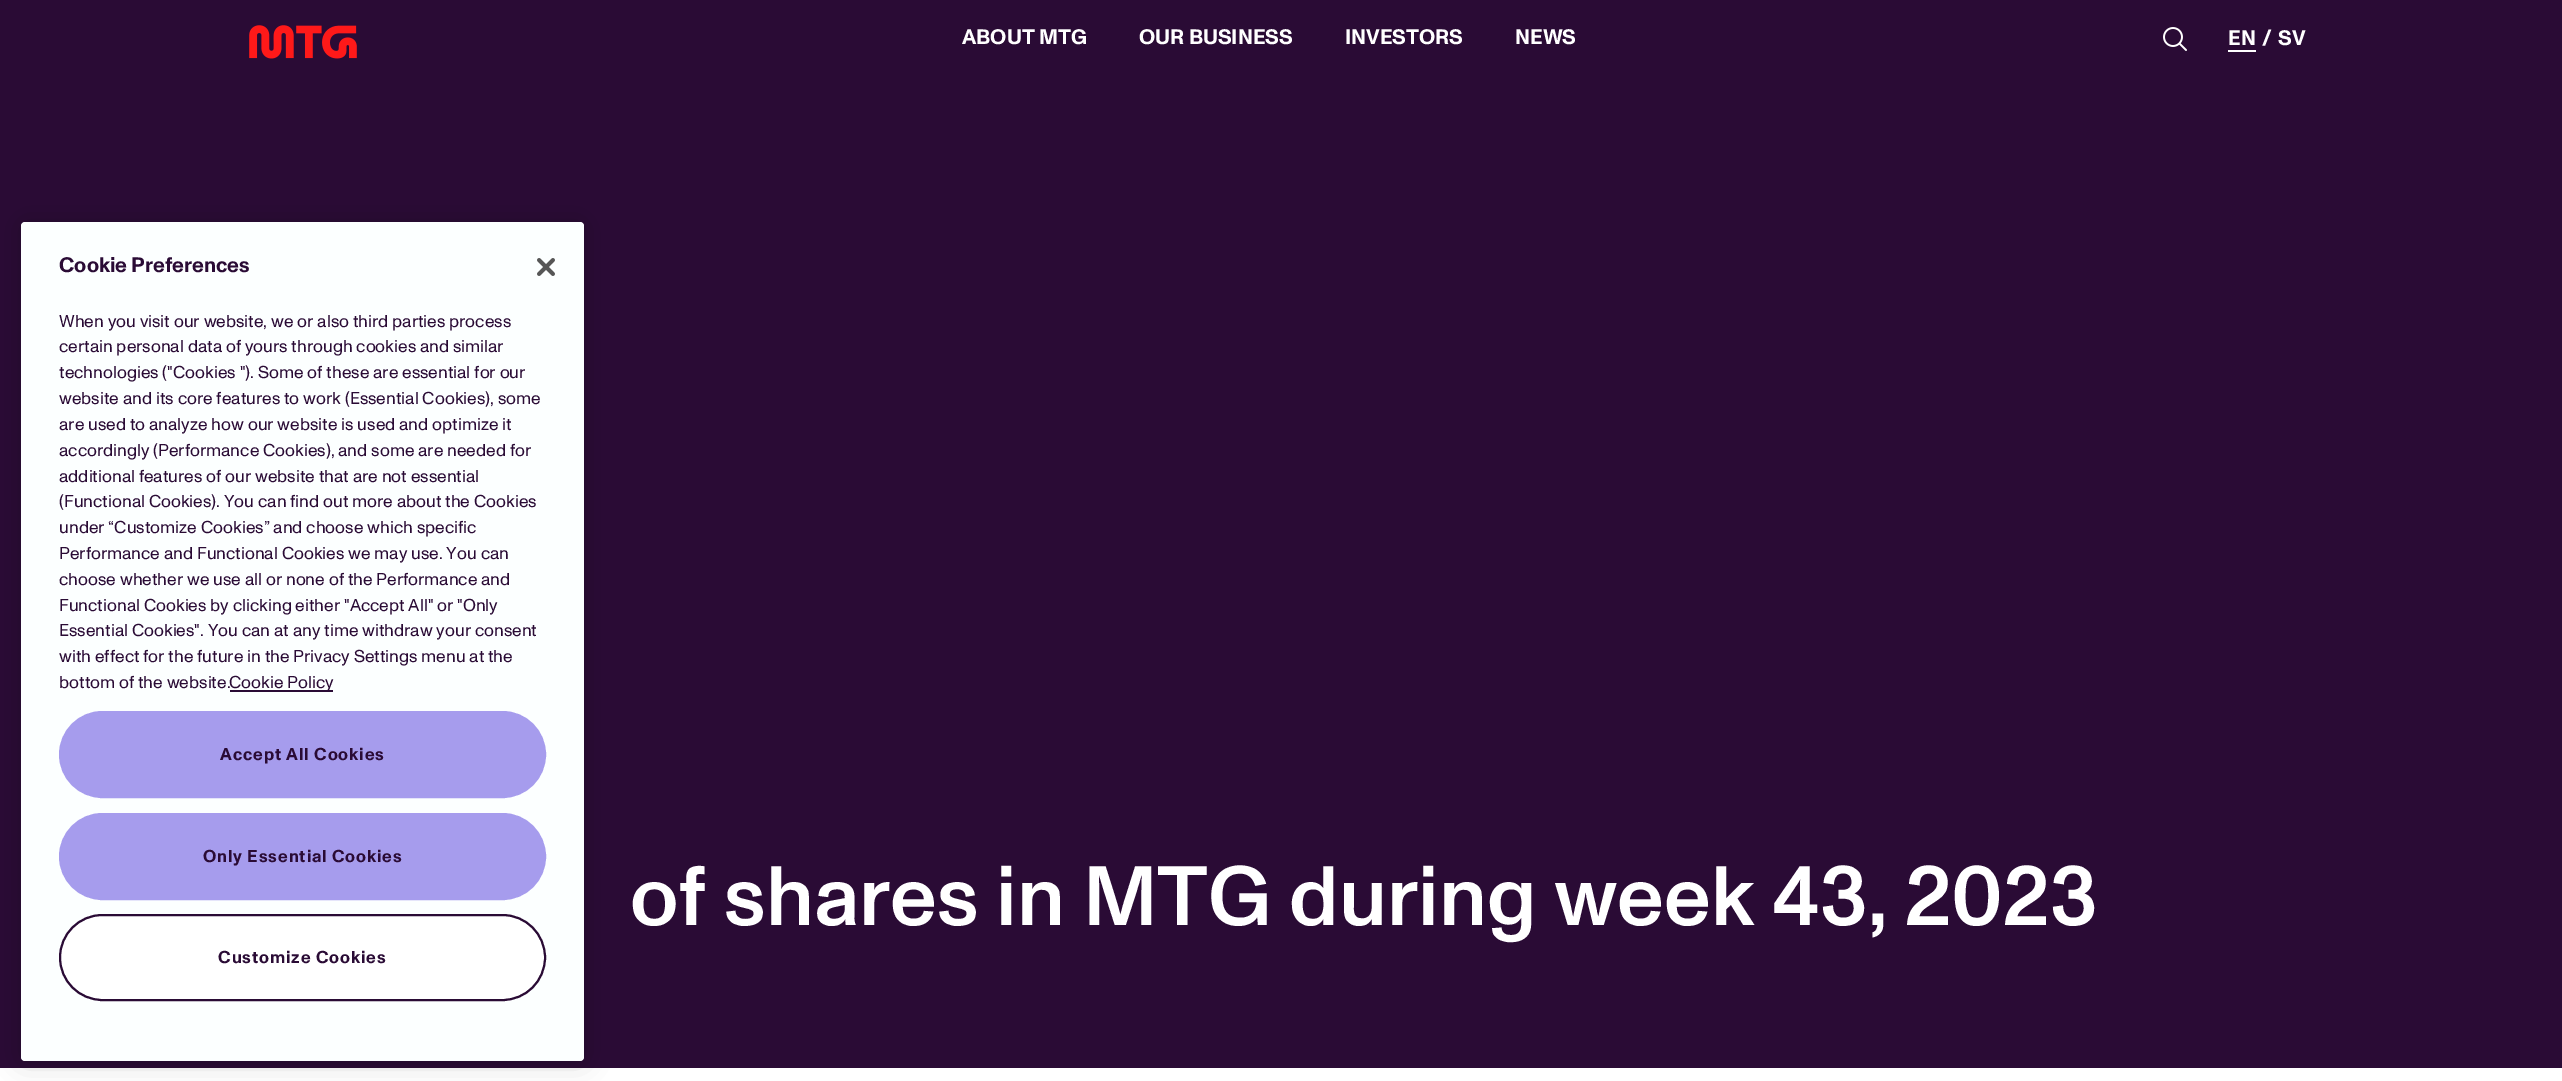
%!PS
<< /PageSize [2562 1081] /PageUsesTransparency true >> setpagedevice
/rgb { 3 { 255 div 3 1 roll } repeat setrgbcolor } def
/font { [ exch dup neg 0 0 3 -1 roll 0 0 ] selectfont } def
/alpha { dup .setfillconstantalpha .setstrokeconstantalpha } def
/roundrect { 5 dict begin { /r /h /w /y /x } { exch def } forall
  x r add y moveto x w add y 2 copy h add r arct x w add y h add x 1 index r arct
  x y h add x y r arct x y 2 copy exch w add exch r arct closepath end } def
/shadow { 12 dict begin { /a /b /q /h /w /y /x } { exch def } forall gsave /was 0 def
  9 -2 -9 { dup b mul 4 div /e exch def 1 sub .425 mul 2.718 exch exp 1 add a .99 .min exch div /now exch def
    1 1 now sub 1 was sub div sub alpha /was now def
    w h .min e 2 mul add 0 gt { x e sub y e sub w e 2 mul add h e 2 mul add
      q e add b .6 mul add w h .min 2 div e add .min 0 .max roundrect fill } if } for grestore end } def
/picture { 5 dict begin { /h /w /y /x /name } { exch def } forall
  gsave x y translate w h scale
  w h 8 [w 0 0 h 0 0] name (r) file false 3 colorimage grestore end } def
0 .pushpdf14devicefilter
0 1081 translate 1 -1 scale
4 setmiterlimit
255 255 255 rgb
0 0 2562 1081 rectfill
42 11 53 rgb
0 0 2562 1068 rectfill
(img/1.rgb) 249 25 108 34 picture
(img/2.rgb) 2163 27 24 24 picture
255 255 255 rgb
2228 50 28 2 rectfill
0 0 0 rgb
21 222 563 839 4 13.5 0.2 shadow
252 255 255 rgb
21 222 563 839 4 roundrect fill
42 11 53 rgb
230 690 103 2 rectfill
(img/3.rgb) 537 258 18 18 picture
166 156 237 rgb
60 712 485 85 42.5 roundrect gsave fill grestore
2 setlinewidth
stroke
60 814 485 85 42.5 roundrect gsave fill grestore
stroke
255 255 255 rgb
60 915 485 85 42.5 roundrect gsave fill grestore
42 11 53 rgb
stroke
/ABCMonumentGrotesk-Bold 21 font
255 255 255 rgb
[
  [(ABOUT MTG) 962 44]
  [(OUR BUSINESS) 1139 44]
  [(INVESTORS) 1345 44]
  [(NEWS) 1515 44]
  [(EN) 2228 45]
  [(/) 2262 45]
  [(SV) 2278 45]
] { aload pop moveto show } forall
42 11 53 rgb
59 272 moveto (Cookie Preferences) show
/ABCMonumentGrotesk-Regular 17.25 font
[
  [(When you visit our website, we or also third parties process) 59 327]
  [(certain personal data of yours through cookies and similar) 59 352]
  [(technologies \("Cookies "\). Some of these are essential for our) 59 378]
  [(website and its core features to work \(Essential Cookies\), some) 59 404]
  [(are used to analyze how our website is used and optimize it) 59 430]
  [(accordingly \(Performance Cookies\), and some are needed for) 59 456]
  [(additional features of our website that are not essential) 59 482]
  [(\(Functional Cookies\). You can find out more about the Cookies) 59 507]
  [(under “Customize Cookies” and choose which specific) 59 533]
  [(Performance and Functional Cookies we may use. You can) 59 559]
  [(choose whether we use all or none of the Performance and) 59 585]
  [(Functional Cookies by clicking either "Accept All" or "Only) 59 611]
  [(Essential Cookies". You can at any time withdraw your consent) 59 636]
  [(with effect for the future in the Privacy Settings menu at the) 59 662]
  [(bottom of the website.) 59 688]
  [(Cookie Policy) 229 688]
] { aload pop moveto show } forall
/ABCMonumentGrotesk-Bold 17.25 font
220 760 moveto 0.9 0 (Accept All Cookies) ashow
203 862 moveto 0.9 0 (Only Essential Cookies) ashow
218 963 moveto 0.9 0 (Customize Cookies) ashow
/ABCMonumentGrotesk-Medium 84 font
255 255 255 rgb
630 925 moveto (of shares in MTG during week 43, 2023) show
.poppdf14devicefilter showpage
